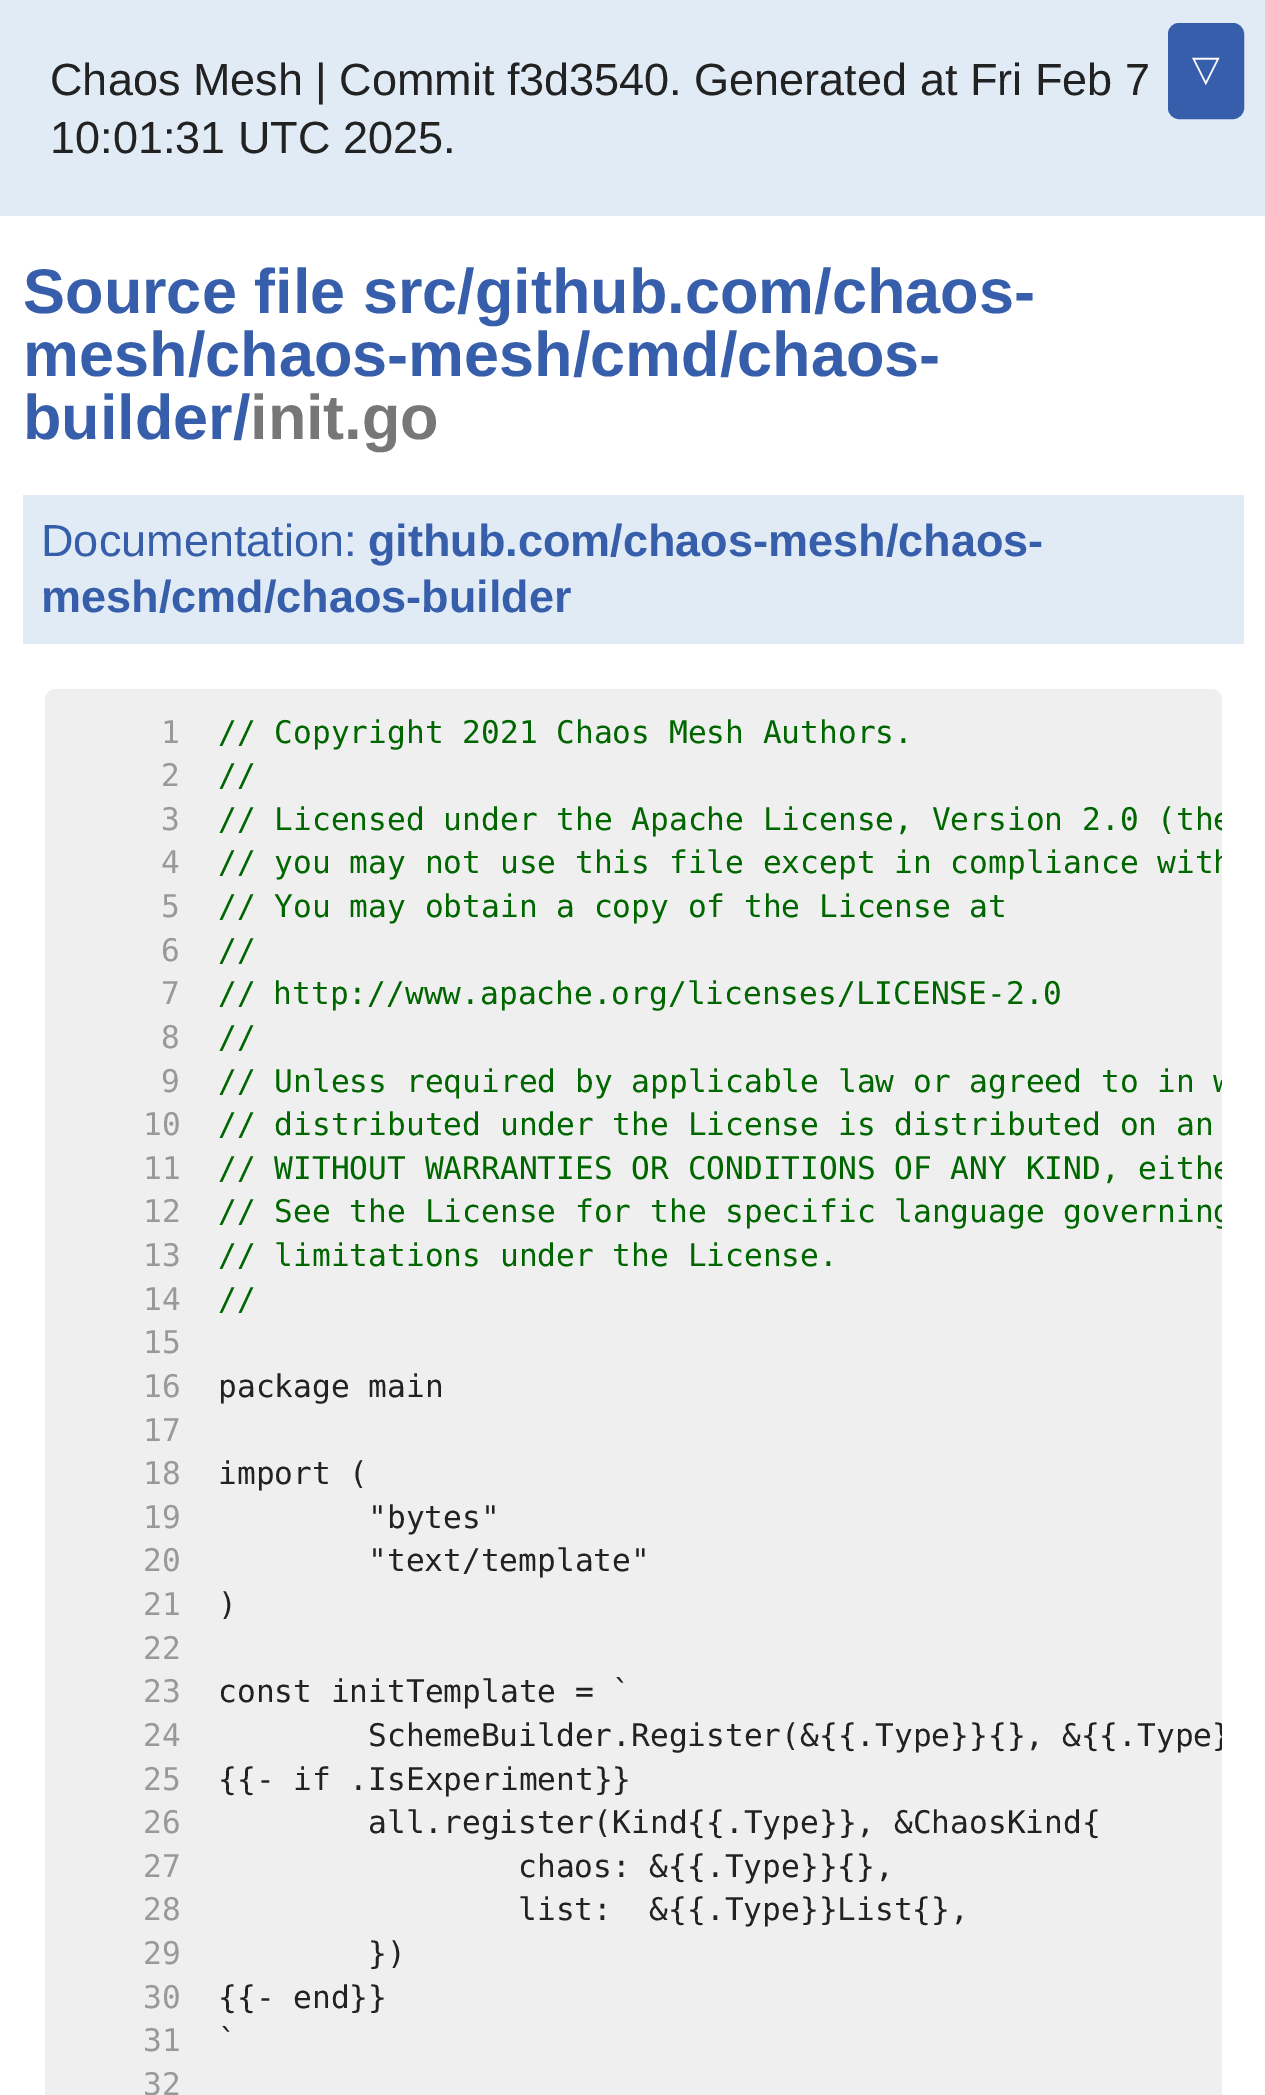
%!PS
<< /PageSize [1265 2095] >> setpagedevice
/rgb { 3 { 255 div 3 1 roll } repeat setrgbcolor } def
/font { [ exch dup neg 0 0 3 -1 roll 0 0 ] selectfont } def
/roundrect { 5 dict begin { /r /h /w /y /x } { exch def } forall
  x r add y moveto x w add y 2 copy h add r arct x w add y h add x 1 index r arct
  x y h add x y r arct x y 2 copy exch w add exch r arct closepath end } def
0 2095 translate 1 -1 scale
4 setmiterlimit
255 255 255 rgb
0 0 1265 2095 rectfill
224 235 245 rgb
0 0 1265 216 rectfill
55 94 171 rgb
1169 24 74 94 10 roundrect gsave fill grestore
2 setlinewidth
stroke
224 235 245 rgb
23 495 1221 149 rectfill
239 239 239 rgb
45 689 1177 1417 11 roundrect fill
/LiberationSans-Regular 45 font
34 34 34 rgb
50 95 moveto (Chaos Mesh | Commit f3d3540. Generated at Fri Feb 7) show
50 153 moveto (10:01:31 UTC 2025.) show
/DejaVuSans-Regular 36 font
255 255 255 rgb
1192 81 moveto (▽) show
/LiberationSans-Bold 63 font
55 94 171 rgb
[
  [(Source file src/github.com/chaos-) 23 313]
  [(mesh/chaos-mesh/cmd/chaos-) 23 376]
  [(builder/) 23 439]
] { aload pop moveto show } forall
119 119 119 rgb
250 439 moveto (init.go) show
/LiberationSans-Regular 45 font
55 94 171 rgb
41 556 moveto (Documentation:) show
/LiberationSans-Bold 45 font
368 556 moveto (github.com/chaos-mesh/chaos-) show
41 612 moveto (mesh/cmd/chaos-builder) show
/DejaVuSansMono-Regular 31.2 font
153 153 153 rgb
161 743 moveto (1) show
0 102 0 rgb
218 743 moveto (// Copyright 2021 Chaos Mesh Authors.) show
153 153 153 rgb
161 786 moveto (2) show
0 102 0 rgb
218 786 moveto (//) show
153 153 153 rgb
161 830 moveto (3) show
gsave
45 689 1177 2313 11 roundrect clip newpath
0 102 0 rgb
218 830 moveto (// Licensed under the Apache License, Version 2.0 \(the) show
grestore
161 873 moveto (4) show
gsave
45 689 1177 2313 11 roundrect clip newpath
0 102 0 rgb
218 873 moveto (// you may not use this file except in compliance with) show
grestore
161 917 moveto (5) show
0 102 0 rgb
218 917 moveto (// You may obtain a copy of the License at) show
153 153 153 rgb
161 961 moveto (6) show
0 102 0 rgb
218 961 moveto (//) show
153 153 153 rgb
161 1004 moveto (7) show
0 102 0 rgb
218 1004 moveto -1 0 32 (// http://www.apache.org/licenses/LICENSE-2.0) widthshow
153 153 153 rgb
161 1048 moveto (8) show
0 102 0 rgb
218 1048 moveto (//) show
153 153 153 rgb
161 1092 moveto (9) show
gsave
45 689 1177 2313 11 roundrect clip newpath
0 102 0 rgb
218 1092 moveto (// Unless required by applicable law or agreed to in w) show
grestore
143 1135 moveto (10) show
0 102 0 rgb
218 1135 moveto (// distributed under the License is distributed on an) show
153 153 153 rgb
143 1179 moveto (11) show
gsave
45 689 1177 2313 11 roundrect clip newpath
0 102 0 rgb
218 1179 moveto (// WITHOUT WARRANTIES OR CONDITIONS OF ANY KIND, eithe) show
grestore
143 1222 moveto (12) show
gsave
45 689 1177 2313 11 roundrect clip newpath
0 102 0 rgb
218 1222 moveto (// See the License for the specific language governing) show
grestore
143 1266 moveto (13) show
0 102 0 rgb
218 1266 moveto (// limitations under the License.) show
153 153 153 rgb
143 1310 moveto (14) show
0 102 0 rgb
218 1310 moveto (//) show
153 153 153 rgb
143 1353 moveto (15) show
143 1397 moveto (16) show
34 34 34 rgb
218 1397 moveto (package main) show
153 153 153 rgb
143 1441 moveto (17) show
143 1484 moveto (18) show
34 34 34 rgb
218 1484 moveto (import \() show
153 153 153 rgb
143 1528 moveto (19) show
34 34 34 rgb
368 1528 moveto ("bytes") show
153 153 153 rgb
143 1571 moveto (20) show
34 34 34 rgb
368 1571 moveto ("text/template") show
153 153 153 rgb
143 1615 moveto (21) show
34 34 34 rgb
218 1615 moveto (\)) show
153 153 153 rgb
143 1659 moveto (22) show
143 1702 moveto (23) show
34 34 34 rgb
218 1702 moveto (const initTemplate = `) show
153 153 153 rgb
143 1746 moveto (24) show
gsave
45 689 1177 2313 11 roundrect clip newpath
34 34 34 rgb
368 1746 moveto -1 0 32 (SchemeBuilder.Register\(&{{.Type}}{}, &{{.Type}) widthshow
grestore
143 1790 moveto (25) show
34 34 34 rgb
218 1790 moveto ({{- if .IsExperiment}}) show
153 153 153 rgb
143 1833 moveto (26) show
34 34 34 rgb
368 1833 moveto (all.register\(Kind{{.Type}}, &ChaosKind{) show
153 153 153 rgb
143 1877 moveto (27) show
34 34 34 rgb
518 1877 moveto (chaos: &{{.Type}}{},) show
153 153 153 rgb
143 1920 moveto (28) show
34 34 34 rgb
518 1920 moveto (list:  &{{.Type}}List{},) show
153 153 153 rgb
143 1964 moveto (29) show
34 34 34 rgb
368 1964 moveto (}\)) show
153 153 153 rgb
143 2008 moveto (30) show
34 34 34 rgb
218 2008 moveto ({{- end}}) show
153 153 153 rgb
143 2051 moveto (31) show
34 34 34 rgb
218 2051 moveto (`) show
153 153 153 rgb
143 2095 moveto (32) show
showpage
